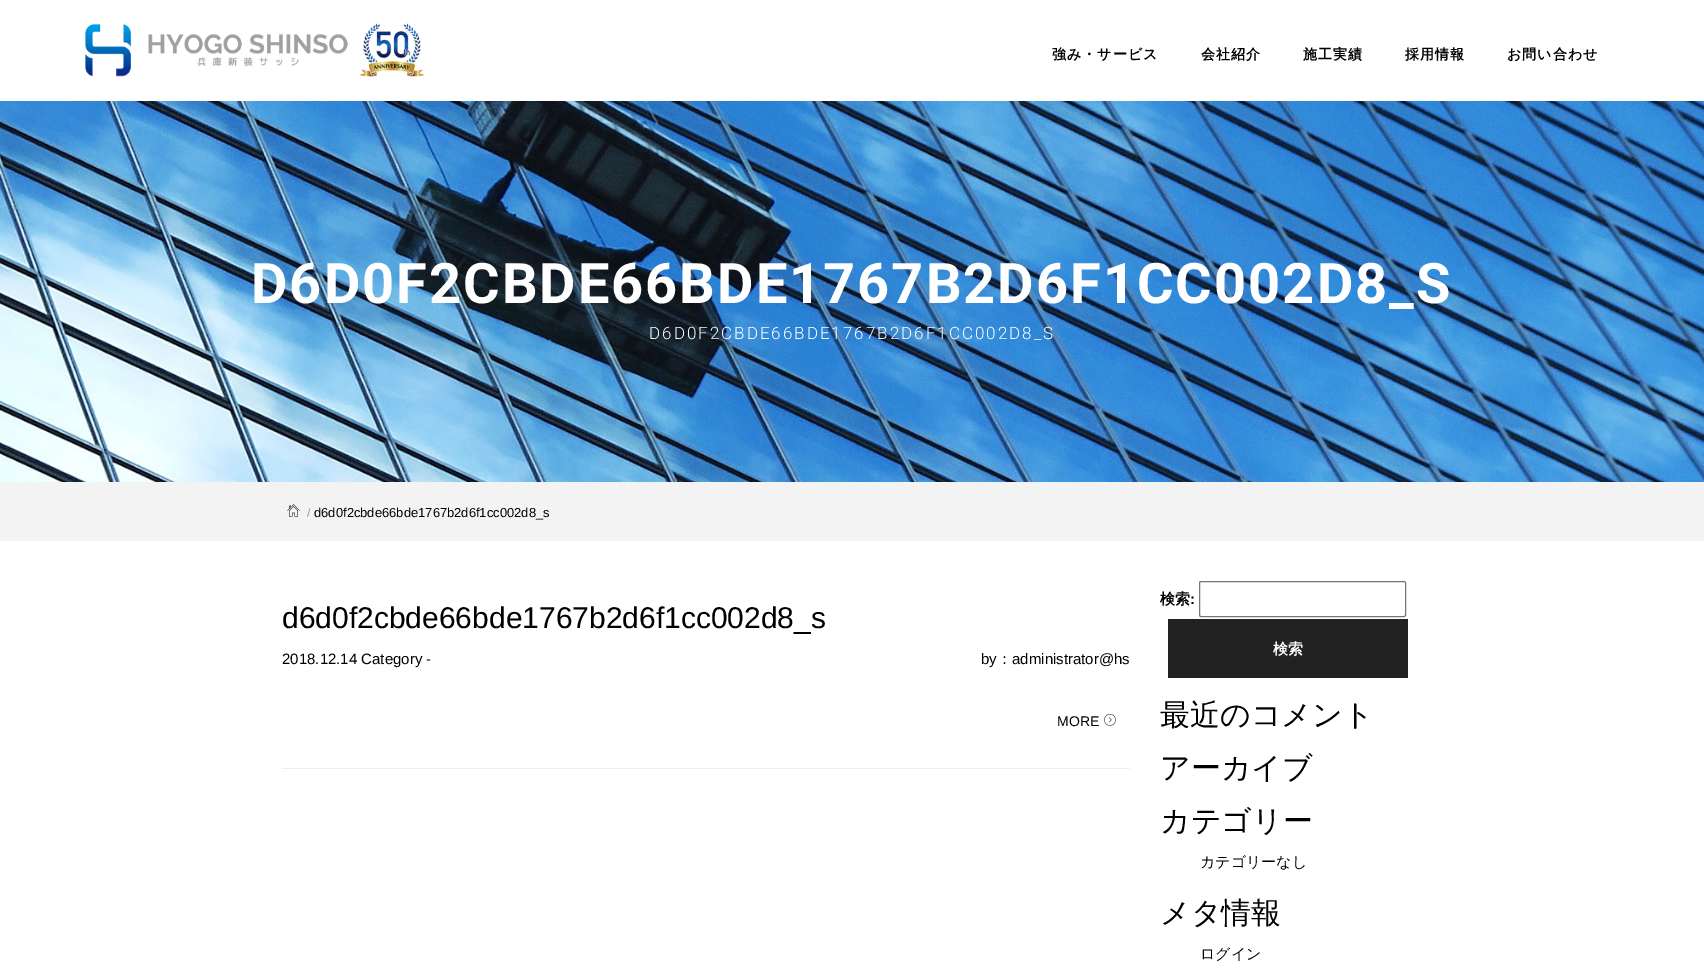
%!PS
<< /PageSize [1704 969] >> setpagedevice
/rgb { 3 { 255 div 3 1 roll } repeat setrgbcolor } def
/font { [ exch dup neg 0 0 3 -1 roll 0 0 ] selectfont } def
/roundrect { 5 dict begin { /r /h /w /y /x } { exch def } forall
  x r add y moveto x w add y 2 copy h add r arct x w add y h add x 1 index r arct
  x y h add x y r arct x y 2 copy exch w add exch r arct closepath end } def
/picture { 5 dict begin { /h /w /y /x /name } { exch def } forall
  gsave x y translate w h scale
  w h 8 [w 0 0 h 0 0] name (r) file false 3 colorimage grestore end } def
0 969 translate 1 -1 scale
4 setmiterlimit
255 255 255 rgb
0 0 1704 969 rectfill
(img/1.rgb) 85 23 340 54 picture
(img/2.rgb) 0 101 1704 381 picture
243 243 243 rgb
0 482 1704 59 rectfill
(img/3.rgb) 287 504 13 13 picture
(img/4.rgb) 1104 714 12 12 picture
238 238 238 rgb
282 768 848 1 rectfill
118 118 118 rgb
1199.5 581.5 206 35 1.5 roundrect stroke
34 34 34 rgb
1168 619 240 59 rectfill
/WenQuanYiZenHei-Bold 14 font
0 0 0 rgb
1052 59 moveto 1 0 (強み・サービス) ashow
1201 59 moveto 1 0 (会社紹介) ashow
1303 59 moveto 1 0 (施工実績) ashow
1405 59 moveto 1 0 (採用情報) ashow
1507 59 moveto 1 0 (お問い合わせ) ashow
/Roboto-Bold 56 font
255 255 255 rgb
251 303 moveto 2 0 (D6D0F2CBDE66BDE1767B2D6F1CC002D8_S) ashow
/Roboto-Light 17 font
649 339 moveto 2 0 (D6D0F2CBDE66BDE1767B2D6F1CC002D8_S) ashow
/LiberationSans-Regular 12 font
153 153 153 rgb
307 517 moveto (/) show
/LiberationSans-Regular 13 font
0 0 0 rgb
314 517 moveto (d6d0f2cbde66bde1767b2d6f1cc002d8_s) show
/LiberationSans-Regular 30 font
282 628 moveto (d6d0f2cbde66bde1767b2d6f1cc002d8_s) show
/LiberationSans-Regular 15 font
282 664 moveto (2018.12.14 Category -) show
981 664 moveto (by) show
/WenQuanYiZenHei-Medium 15 font
997 664 moveto (：) show
/LiberationSans-Regular 15 font
1012 664 moveto (administrator@hs) show
/LiberationSans-Regular 14 font
1057 726 moveto (MORE) show
/WenQuanYiZenHei-Bold 15 font
1160 604 moveto (検索) show
/LiberationSans-Bold 15 font
1190 604 moveto (:) show
/WenQuanYiZenHei-Bold 15 font
255 255 255 rgb
1273 654 moveto (検索) show
/WenQuanYiZenHei-Medium 30 font
0 0 0 rgb
[
  [(最近のコメント) 1160 725]
  [(アーカイブ) 1160 778]
  [(カテゴリー) 1160 831]
] { aload pop moveto show } forall
/WenQuanYiZenHei-Medium 15 font
1200 867 moveto (カテゴリーなし) show
/WenQuanYiZenHei-Medium 30 font
1160 923 moveto (メタ情報) show
/WenQuanYiZenHei-Medium 15 font
1200 959 moveto (ログイン) show
showpage
